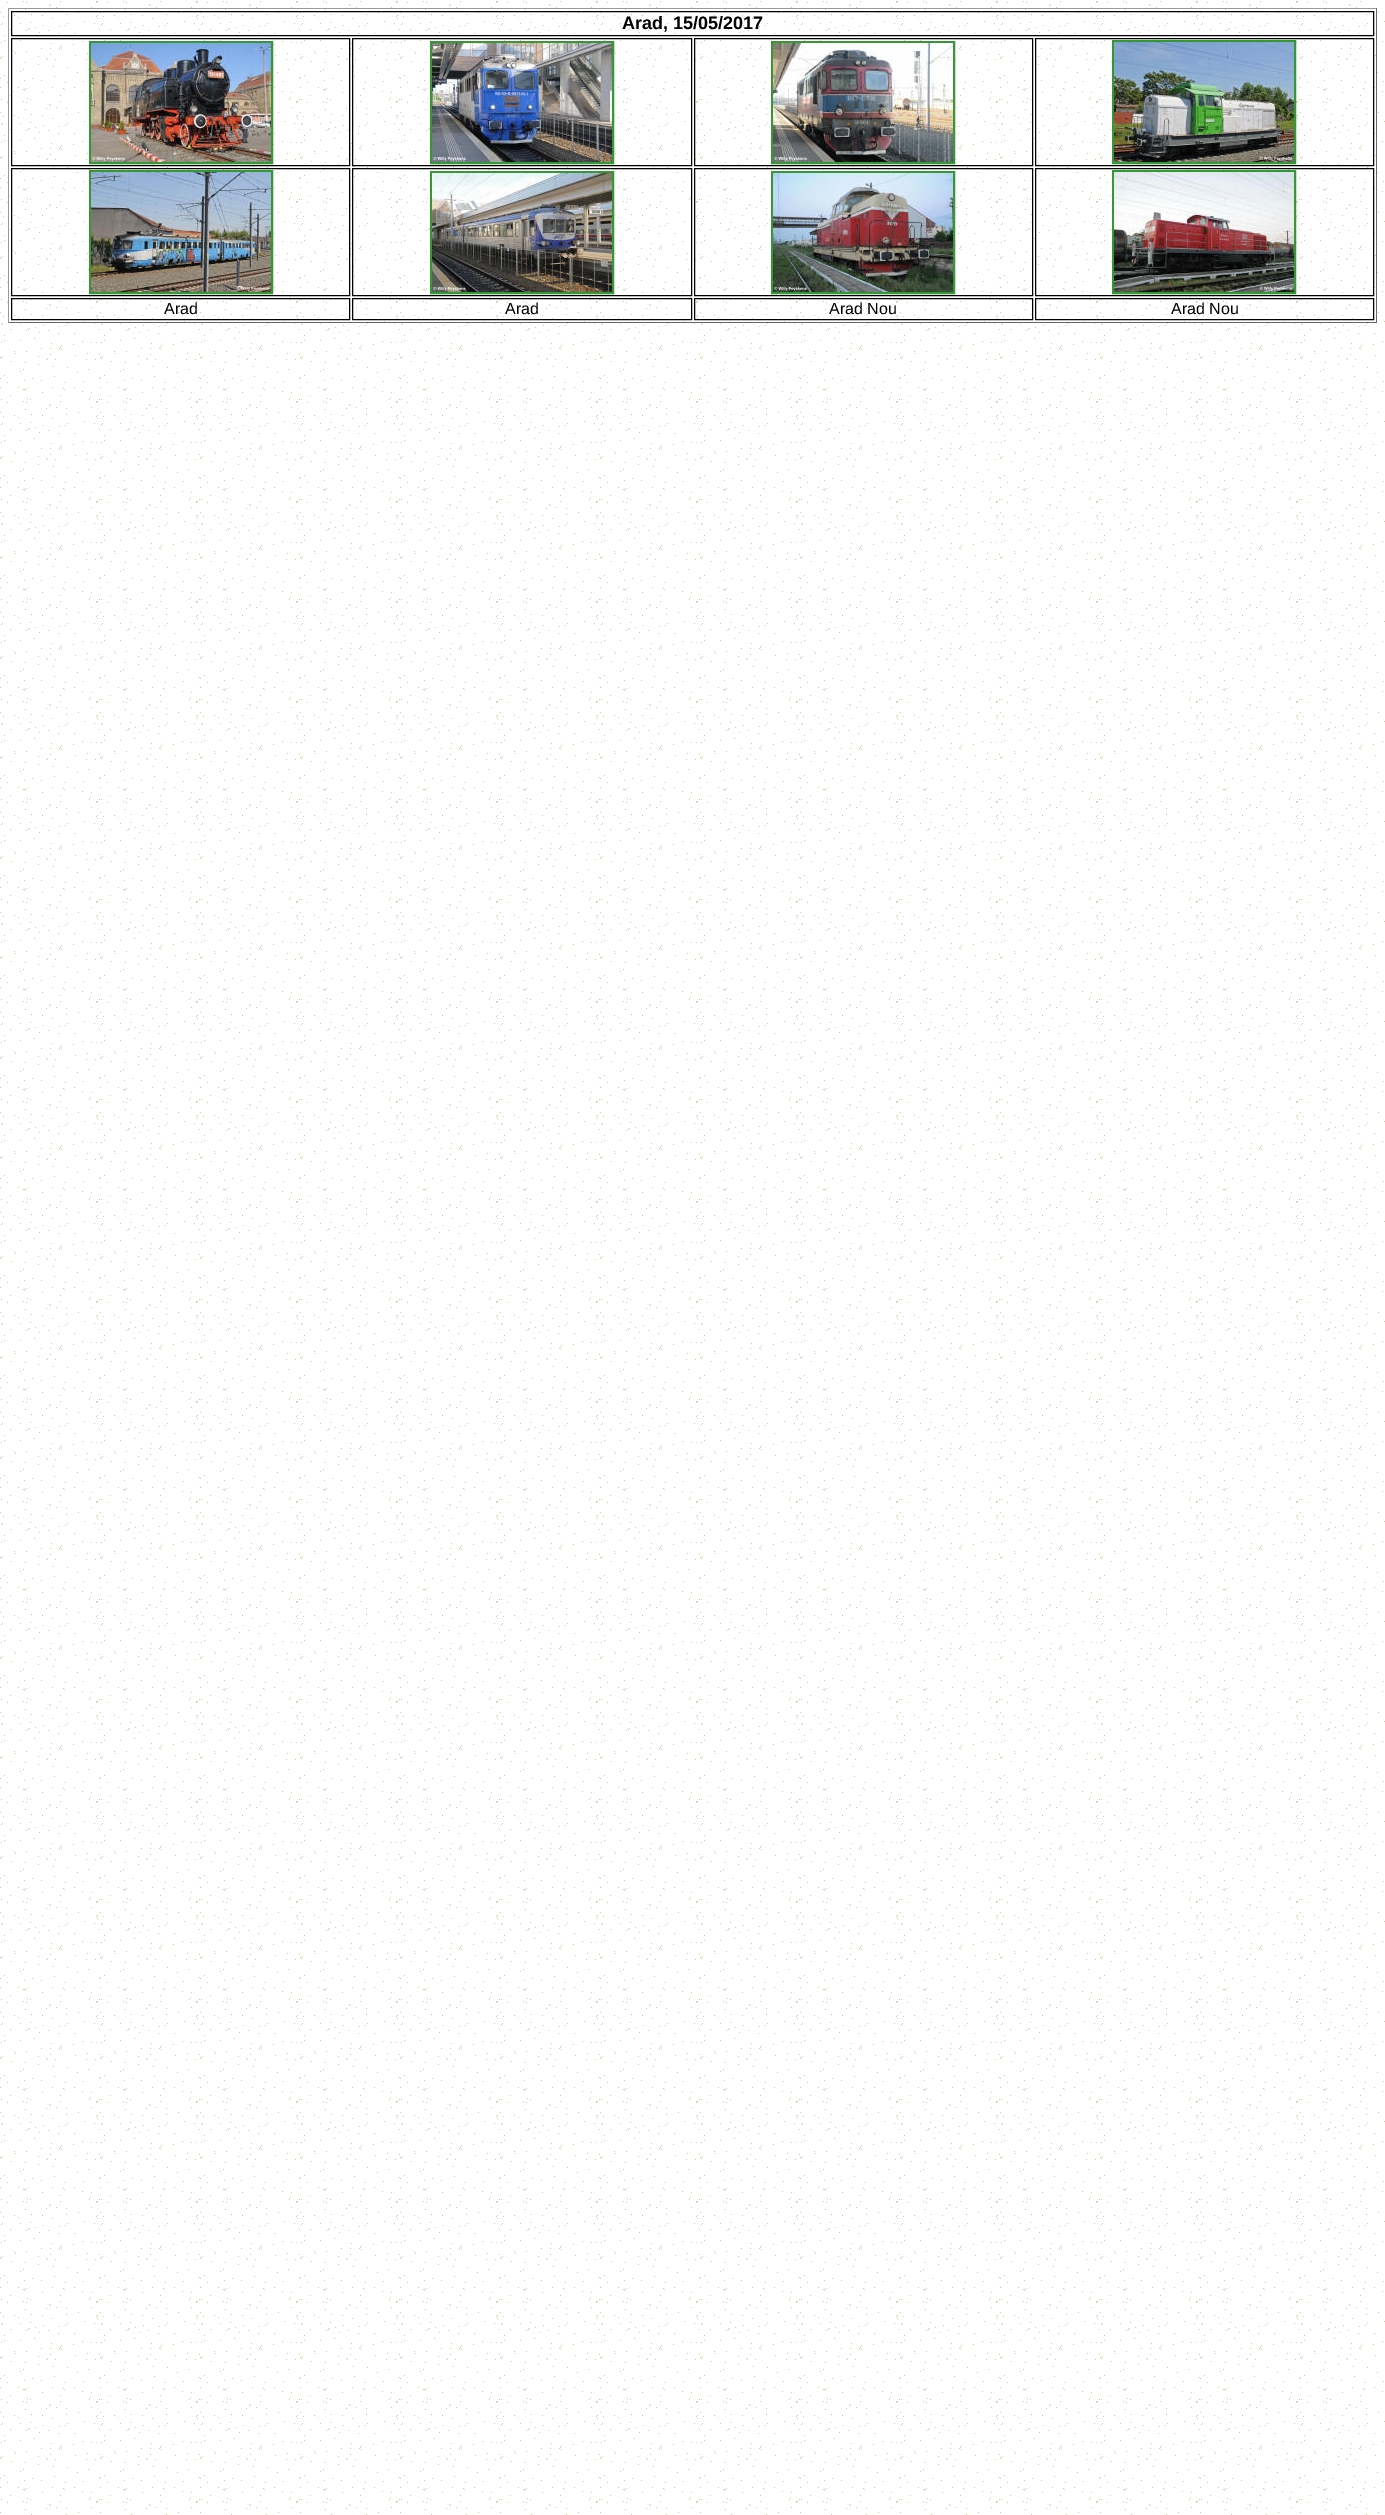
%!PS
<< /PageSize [1385 2515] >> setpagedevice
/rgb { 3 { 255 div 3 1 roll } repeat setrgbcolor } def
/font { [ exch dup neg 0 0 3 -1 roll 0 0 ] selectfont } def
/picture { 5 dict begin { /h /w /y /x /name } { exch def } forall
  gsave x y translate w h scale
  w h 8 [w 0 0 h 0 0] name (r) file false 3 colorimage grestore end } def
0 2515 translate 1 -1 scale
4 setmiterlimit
255 255 255 rgb
0 0 1385 2515 rectfill
(img/1.rgb) 0 1 1385 2514 picture
[
  [8 8 1369 1 153 153 153]
  [1376 8 1 315 102 102 102]
  [8 322 1369 1 102 102 102]
  [8 8 1 315 153 153 153]
] { aload pop rgb rectfill } forall
0 0 0 rgb
11.5 11.5 1362 24 rectstroke
11.5 38.5 338 127 rectstroke
51 153 51 rgb
2 setlinewidth
90 42 182 121 rectstroke
(img/2.rgb) 91 43 180 119 picture
0 0 0 rgb
1 setlinewidth
352.5 38.5 339 127 rectstroke
51 153 51 rgb
2 setlinewidth
431 42 182 121 rectstroke
(img/3.rgb) 432 43 180 119 picture
0 0 0 rgb
1 setlinewidth
694.5 38.5 338 127 rectstroke
51 153 51 rgb
2 setlinewidth
772 42 182 121 rectstroke
(img/4.rgb) 773 43 180 119 picture
0 0 0 rgb
1 setlinewidth
1035.5 38.5 338 127 rectstroke
51 153 51 rgb
2 setlinewidth
1113 41 182 122 rectstroke
(img/5.rgb) 1114 42 180 120 picture
0 0 0 rgb
1 setlinewidth
11.5 168.5 338 127 rectstroke
51 153 51 rgb
2 setlinewidth
90 171 182 122 rectstroke
(img/6.rgb) 91 172 180 120 picture
0 0 0 rgb
1 setlinewidth
352.5 168.5 339 127 rectstroke
51 153 51 rgb
2 setlinewidth
431 172 182 121 rectstroke
(img/7.rgb) 432 173 180 119 picture
0 0 0 rgb
1 setlinewidth
694.5 168.5 338 127 rectstroke
51 153 51 rgb
2 setlinewidth
772 172 182 121 rectstroke
(img/8.rgb) 773 173 180 119 picture
0 0 0 rgb
1 setlinewidth
1035.5 168.5 338 127 rectstroke
51 153 51 rgb
2 setlinewidth
1113 171 182 122 rectstroke
(img/9.rgb) 1114 172 180 120 picture
0 0 0 rgb
1 setlinewidth
11.5 298.5 338 21 rectstroke
352.5 298.5 339 21 rectstroke
694.5 298.5 338 21 rectstroke
1035.5 298.5 338 21 rectstroke
/LiberationSans-Bold 18 font
622 29 moveto (Arad, 15/05/2017) show
/LiberationSans-Regular 16 font
[
  [(Arad) 164 314]
  [(Arad) 505 314]
  [(Arad Nou) 829 314]
  [(Arad Nou) 1171 314]
] { aload pop moveto show } forall
showpage
